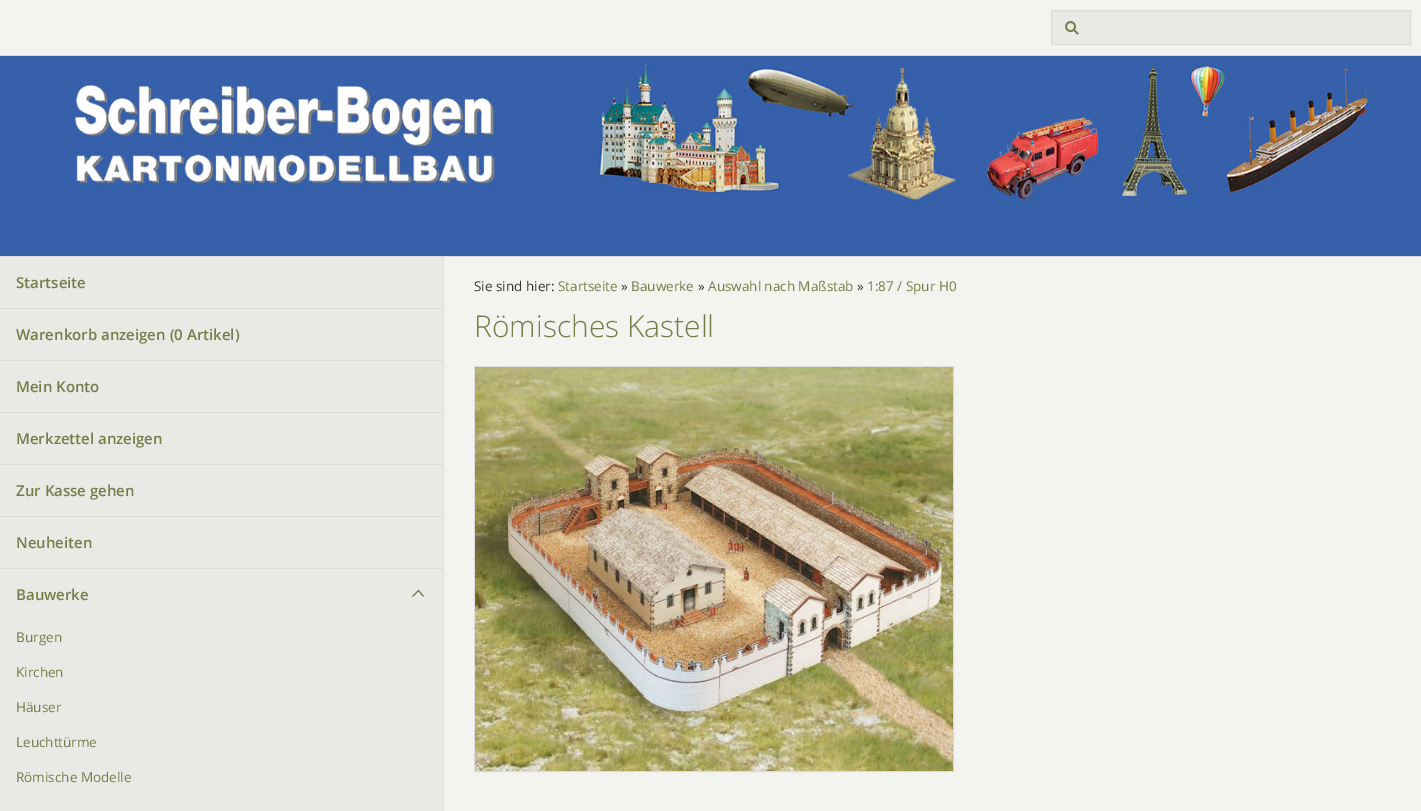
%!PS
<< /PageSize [1421 811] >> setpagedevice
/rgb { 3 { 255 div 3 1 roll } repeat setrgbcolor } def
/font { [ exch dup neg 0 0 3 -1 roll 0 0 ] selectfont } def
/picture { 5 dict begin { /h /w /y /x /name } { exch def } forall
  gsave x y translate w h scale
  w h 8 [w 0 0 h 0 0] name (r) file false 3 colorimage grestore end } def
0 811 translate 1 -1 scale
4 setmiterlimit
243 244 239 rgb
0 0 1421 811 rectfill
233 234 229 rgb
1052 11 358 33 rectfill
(img/1.rgb) 1065 21 14 14 picture
220 221 217 rgb
1051.5 10.5 359 34 rectstroke
0 55 1421 1 rectfill
0 256 1421 1 rectfill
(img/2.rgb) 0 56 1421 200 picture
[
  [0 257 443 554 233 234 229]
  [443 257 1 554 220 221 217]
  [0 308 443 1 220 221 217]
  [0 360 443 1 220 221 217]
  [0 412 443 1 220 221 217]
  [0 464 443 1 220 221 217]
  [0 516 443 1 220 221 217]
  [0 568 443 1 220 221 217]
] { aload pop rgb rectfill } forall
(img/3.rgb) 411 589 14 8 picture
221 221 221 rgb
474.5 366.5 479 405 rectstroke
(img/4.rgb) 475 367 478 404 picture
/OpenSans-SemiBold 15 font
115 127 73 rgb
[
  [(Startseite) 16 288]
  [(Warenkorb anzeigen \(0 Artikel\)) 16 340]
  [(Mein Konto) 16 392]
  [(Merkzettel anzeigen) 16 444]
  [(Zur Kasse gehen) 16 496]
  [(Neuheiten) 16 548]
  [(Bauwerke) 16 600]
] { aload pop moveto show } forall
/OpenSans-Regular 13.5 font
[
  [(Burgen) 16 642]
  [(Kirchen) 16 677]
  [(Häuser) 16 712]
  [(Leuchttürme) 16 747]
  [(Römische Modelle) 16 782]
] { aload pop moveto show } forall
51 51 51 rgb
474 291 moveto (Sie sind hier:) show
115 127 73 rgb
558 291 moveto (Startseite) show
51 51 51 rgb
621 291 moveto (») show
115 127 73 rgb
631 291 moveto (Bauwerke) show
51 51 51 rgb
698 291 moveto (») show
115 127 73 rgb
708 291 moveto (Auswahl nach Maßstab) show
51 51 51 rgb
857 291 moveto (») show
115 127 73 rgb
867 291 moveto (1:87 / Spur H0) show
/OpenSans-Light 30 font
474 337 moveto (Römisches Kastell) show
showpage
